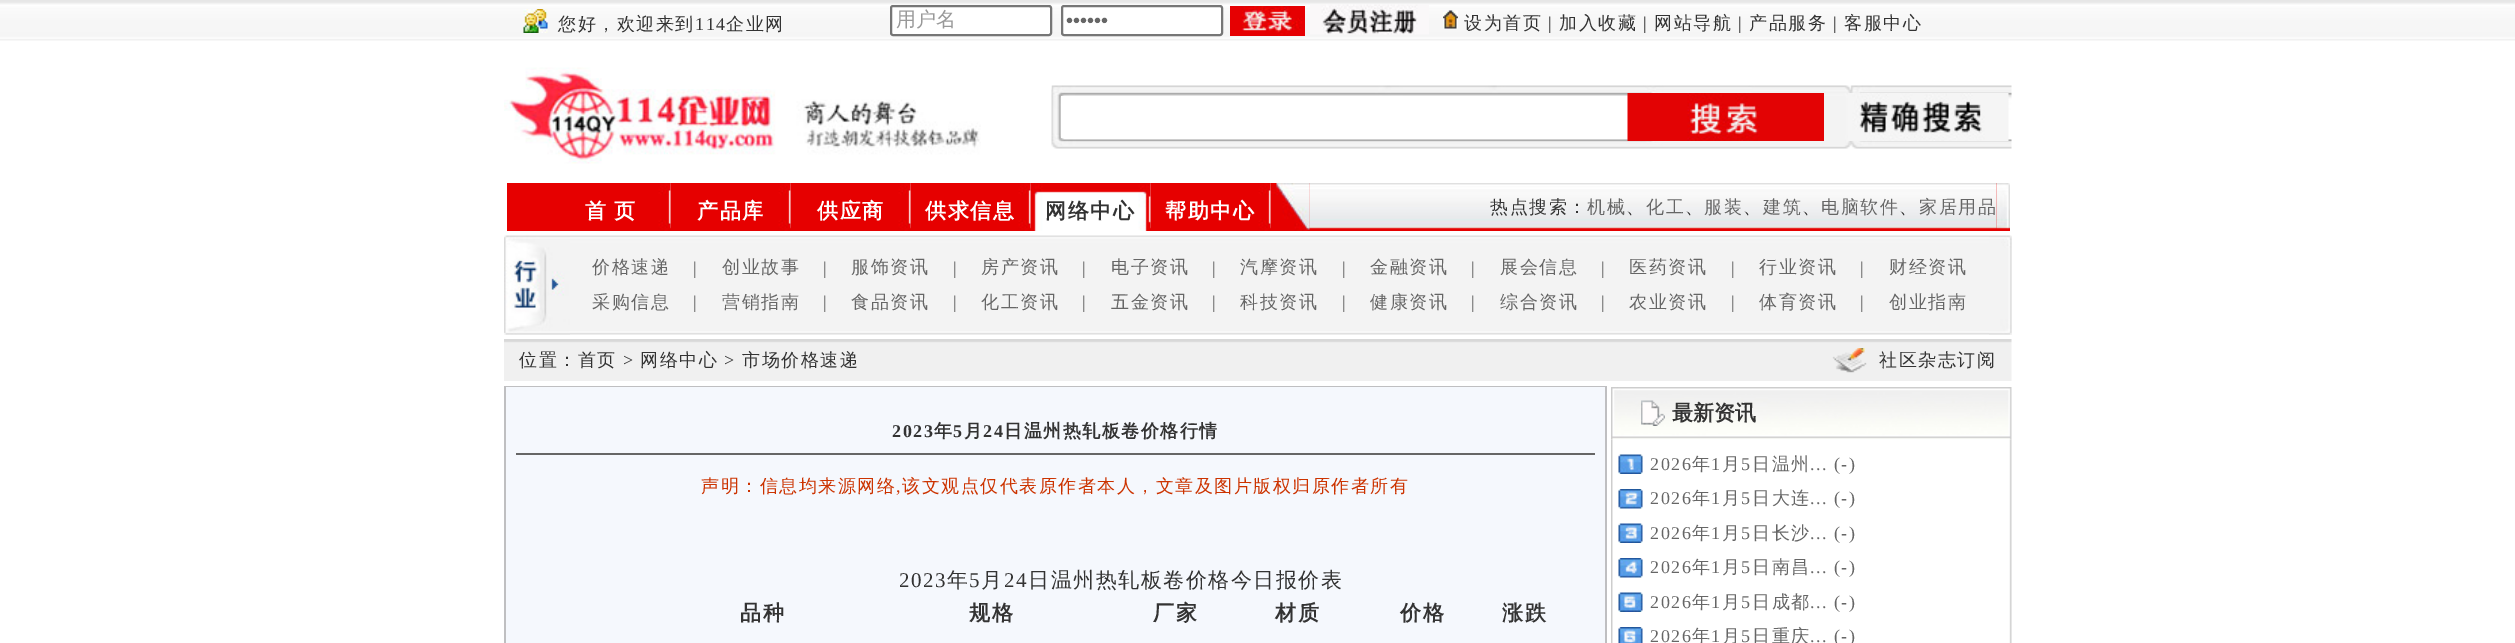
%!PS
<< /PageSize [2515 643] >> setpagedevice
/rgb { 3 { 255 div 3 1 roll } repeat setrgbcolor } def
/font { [ exch dup neg 0 0 3 -1 roll 0 0 ] selectfont } def
/roundrect { 5 dict begin { /r /h /w /y /x } { exch def } forall
  x r add y moveto x w add y 2 copy h add r arct x w add y h add x 1 index r arct
  x y h add x y r arct x y 2 copy exch w add exch r arct closepath end } def
/picture { 5 dict begin { /h /w /y /x /name } { exch def } forall
  gsave x y translate w h scale
  w h 8 [w 0 0 h 0 0] name (r) file false 3 colorimage grestore end } def
0 643 translate 1 -1 scale
4 setmiterlimit
255 255 255 rgb
0 0 2515 643 rectfill
(img/1.rgb) 0 0 2515 41 picture
(img/2.rgb) 523 9 25 24 picture
891 6 160 29 2 roundrect gsave fill grestore
118 118 118 rgb
2 setlinewidth
stroke
255 255 255 rgb
1062 6 160 29 2 roundrect gsave fill grestore
118 118 118 rgb
stroke
(img/3.rgb) 1230 6 75 30 picture
(img/4.rgb) 1310 4 119 31 picture
(img/5.rgb) 1443 10 15 19 picture
(img/6.rgb) 504 67 477 97 picture
(img/7.rgb) 1051 85 961 64 picture
255 255 255 rgb
1061 96 567 42 rectfill
(img/8.rgb) 1627 93 197 48 picture
(img/9.rgb) 1848 93 161 48 picture
230 0 0 rgb
507 183 44 48 rectfill
670 183 1327 48 rectfill
(img/10.rgb) 670 183 640 46 picture
(img/11.rgb) 551 183 120 48 picture
(img/12.rgb) 670 183 121 48 picture
(img/13.rgb) 790 183 121 48 picture
(img/13.rgb) 910 183 121 48 picture
(img/14.rgb) 1030 183 121 48 picture
(img/15.rgb) 1150 183 121 48 picture
(img/17.rgb) 1309 183 688 46 picture
(img/16.rgb) 1270 183 40 48 picture
(img/18.rgb) 1996 183 14 48 picture
243 243 243 rgb
504 334 66 1 rectfill
(img/19.rgb) 504 235 66 100 picture
(img/20.rgb) 570 235 1419 100 picture
1989 236 23 99 rectfill
(img/21.rgb) 1989 235 23 100 picture
(img/22.rgb) 504 339 1508 42 picture
(img/23.rgb) 1832 348 35 25 picture
[
  [504 386 1103 257 191 191 193]
  [506 387 1099 256 245 248 253]
  [516 453 1079 2 102 102 102]
] { aload pop rgb rectfill } forall
(img/24.rgb) 1611 387 401 53 picture
(img/25.rgb) 1641 400 24 26 picture
(img/26.rgb) 1611 439 401 204 picture
(img/27.rgb) 1618 454 25 20 picture
(img/28.rgb) 1618 489 25 20 picture
(img/29.rgb) 1618 523 25 20 picture
(img/30.rgb) 1618 558 25 20 picture
(img/31.rgb) 1618 592 25 20 picture
(img/32.rgb) 1618 627 25 16 picture
/WenQuanYiZenHei-Medium 18 font
51 51 51 rgb
558 30 moveto 1.5 0 (您好，欢迎来到) ashow
/LiberationSerif-Regular 18 font
695 30 moveto 1.5 0 (114) ashow
/WenQuanYiZenHei-Medium 18 font
726 30 moveto 1.5 0 (企业网) ashow
/WenQuanYiZenHei-Medium 20 font
153 153 153 rgb
896 26 moveto (用户名) show
/LiberationSans-Regular 20 font
102 102 102 rgb
1066 27 moveto (••••••) show
/WenQuanYiZenHei-Medium 18 font
51 51 51 rgb
1464 29 moveto 1.5 0 (设为首页) ashow
/LiberationSerif-Regular 18 font
1548 29 moveto 1.5 0 (|) ashow
/WenQuanYiZenHei-Medium 18 font
1559 29 moveto 1.5 0 (加入收藏) ashow
/LiberationSerif-Regular 18 font
1643 29 moveto 1.5 0 (|) ashow
/WenQuanYiZenHei-Medium 18 font
1654 29 moveto 1.5 0 (网站导航) ashow
/LiberationSerif-Regular 18 font
1738 29 moveto 1.5 0 (|) ashow
/WenQuanYiZenHei-Medium 18 font
1749 29 moveto 1.5 0 (产品服务) ashow
/LiberationSerif-Regular 18 font
1833 29 moveto 1.5 0 (|) ashow
/WenQuanYiZenHei-Medium 18 font
1844 29 moveto 1.5 0 (客服中心) ashow
/WenQuanYiZenHei-Bold 21 font
255 255 255 rgb
585 218 moveto 1.5 0 (首) ashow
614 218 moveto 1.5 0 (页) ashow
697 218 moveto 1.5 0 (产品库) ashow
817 218 moveto 1.5 0 (供应商) ashow
925 218 moveto 1.5 0 (供求信息) ashow
51 51 51 rgb
1045 218 moveto 1.5 0 (网络中心) ashow
255 255 255 rgb
1165 218 moveto 1.5 0 (帮助中心) ashow
/WenQuanYiZenHei-Medium 18 font
51 51 51 rgb
1490 213 moveto 1.5 0 (热点搜索：) ashow
102 102 102 rgb
1587 213 moveto 1.5 0 (机械) ashow
51 51 51 rgb
1626 213 moveto 1.5 0 (、) ashow
102 102 102 rgb
1646 213 moveto 1.5 0 (化工) ashow
51 51 51 rgb
1685 213 moveto 1.5 0 (、) ashow
102 102 102 rgb
1704 213 moveto 1.5 0 (服装) ashow
51 51 51 rgb
1743 213 moveto 1.5 0 (、) ashow
102 102 102 rgb
1763 213 moveto 1.5 0 (建筑) ashow
51 51 51 rgb
1802 213 moveto 1.5 0 (、) ashow
102 102 102 rgb
1821 213 moveto 1.5 0 (电脑软件) ashow
51 51 51 rgb
1899 213 moveto 1.5 0 (、) ashow
102 102 102 rgb
1919 213 moveto 1.5 0 (家居用品) ashow
592 273 moveto 1.5 0 (价格速递) ashow
/LiberationSerif-Regular 18 font
693 274 moveto 1.5 0 (|) ashow
/WenQuanYiZenHei-Medium 18 font
722 273 moveto 1.5 0 (创业故事) ashow
/LiberationSerif-Regular 18 font
823 274 moveto 1.5 0 (|) ashow
/WenQuanYiZenHei-Medium 18 font
851 273 moveto 1.5 0 (服饰资讯) ashow
/LiberationSerif-Regular 18 font
953 274 moveto 1.5 0 (|) ashow
/WenQuanYiZenHei-Medium 18 font
981 273 moveto 1.5 0 (房产资讯) ashow
/LiberationSerif-Regular 18 font
1082 274 moveto 1.5 0 (|) ashow
/WenQuanYiZenHei-Medium 18 font
1111 273 moveto 1.5 0 (电子资讯) ashow
/LiberationSerif-Regular 18 font
1212 274 moveto 1.5 0 (|) ashow
/WenQuanYiZenHei-Medium 18 font
1240 273 moveto 1.5 0 (汽摩资讯) ashow
/LiberationSerif-Regular 18 font
1342 274 moveto 1.5 0 (|) ashow
/WenQuanYiZenHei-Medium 18 font
1370 273 moveto 1.5 0 (金融资讯) ashow
/LiberationSerif-Regular 18 font
1471 274 moveto 1.5 0 (|) ashow
/WenQuanYiZenHei-Medium 18 font
1500 273 moveto 1.5 0 (展会信息) ashow
/LiberationSerif-Regular 18 font
1601 274 moveto 1.5 0 (|) ashow
/WenQuanYiZenHei-Medium 18 font
1629 273 moveto 1.5 0 (医药资讯) ashow
/LiberationSerif-Regular 18 font
1731 274 moveto 1.5 0 (|) ashow
/WenQuanYiZenHei-Medium 18 font
1759 273 moveto 1.5 0 (行业资讯) ashow
/LiberationSerif-Regular 18 font
1860 274 moveto 1.5 0 (|) ashow
/WenQuanYiZenHei-Medium 18 font
1889 273 moveto 1.5 0 (财经资讯) ashow
592 308 moveto 1.5 0 (采购信息) ashow
/LiberationSerif-Regular 18 font
693 308 moveto 1.5 0 (|) ashow
/WenQuanYiZenHei-Medium 18 font
722 308 moveto 1.5 0 (营销指南) ashow
/LiberationSerif-Regular 18 font
823 308 moveto 1.5 0 (|) ashow
/WenQuanYiZenHei-Medium 18 font
851 308 moveto 1.5 0 (食品资讯) ashow
/LiberationSerif-Regular 18 font
953 308 moveto 1.5 0 (|) ashow
/WenQuanYiZenHei-Medium 18 font
981 308 moveto 1.5 0 (化工资讯) ashow
/LiberationSerif-Regular 18 font
1082 308 moveto 1.5 0 (|) ashow
/WenQuanYiZenHei-Medium 18 font
1111 308 moveto 1.5 0 (五金资讯) ashow
/LiberationSerif-Regular 18 font
1212 308 moveto 1.5 0 (|) ashow
/WenQuanYiZenHei-Medium 18 font
1240 308 moveto 1.5 0 (科技资讯) ashow
/LiberationSerif-Regular 18 font
1342 308 moveto 1.5 0 (|) ashow
/WenQuanYiZenHei-Medium 18 font
1370 308 moveto 1.5 0 (健康资讯) ashow
/LiberationSerif-Regular 18 font
1471 308 moveto 1.5 0 (|) ashow
/WenQuanYiZenHei-Medium 18 font
1500 308 moveto 1.5 0 (综合资讯) ashow
/LiberationSerif-Regular 18 font
1601 308 moveto 1.5 0 (|) ashow
/WenQuanYiZenHei-Medium 18 font
1629 308 moveto 1.5 0 (农业资讯) ashow
/LiberationSerif-Regular 18 font
1731 308 moveto 1.5 0 (|) ashow
/WenQuanYiZenHei-Medium 18 font
1759 308 moveto 1.5 0 (体育资讯) ashow
/LiberationSerif-Regular 18 font
1860 308 moveto 1.5 0 (|) ashow
/WenQuanYiZenHei-Medium 18 font
1889 308 moveto 1.5 0 (创业指南) ashow
51 51 51 rgb
519 366 moveto 1.5 0 (位置：首页) ashow
/LiberationSerif-Regular 18 font
623 366 moveto 1.5 0 (>) ashow
/WenQuanYiZenHei-Medium 18 font
640 366 moveto 1.5 0 (网络中心) ashow
/LiberationSerif-Regular 18 font
724 366 moveto 1.5 0 (>) ashow
/WenQuanYiZenHei-Medium 18 font
742 366 moveto 1.5 0 (市场价格速递) ashow
1879 366 moveto 1.5 0 (社区杂志订阅) ashow
/LiberationSerif-Bold 18 font
892 437 moveto 1.5 0 (2023) ashow
/WenQuanYiZenHei-Bold 18 font
934 437 moveto 1.5 0 (年) ashow
/LiberationSerif-Bold 18 font
953 437 moveto 1.5 0 (5) ashow
/WenQuanYiZenHei-Bold 18 font
964 437 moveto 1.5 0 (月) ashow
/LiberationSerif-Bold 18 font
983 437 moveto 1.5 0 (24) ashow
/WenQuanYiZenHei-Bold 18 font
1004 437 moveto 1.5 0 (日温州热轧板卷价格行情) ashow
/WenQuanYiZenHei-Medium 18 font
204 51 0 rgb
701 492 moveto 1.5 0 (声明：信息均来源网络) ashow
/LiberationSerif-Regular 18 font
896 492 moveto 1.5 0 (,) ashow
/WenQuanYiZenHei-Medium 18 font
902 492 moveto 1.5 0 (该文观点仅代表原作者本人，文章及图片版权归原作者所有) ashow
/LiberationSerif-Regular 21 font
51 51 51 rgb
899 587 moveto 1.5 0 (2023) ashow
/WenQuanYiZenHei-Medium 21 font
947 587 moveto 1.5 0 (年) ashow
/LiberationSerif-Regular 21 font
969 587 moveto 1.5 0 (5) ashow
/WenQuanYiZenHei-Medium 21 font
981 587 moveto 1.5 0 (月) ashow
/LiberationSerif-Regular 21 font
1004 587 moveto 1.5 0 (24) ashow
/WenQuanYiZenHei-Medium 21 font
1028 587 moveto 1.5 0 (日温州热轧板卷价格今日报价表) ashow
/WenQuanYiZenHei-Bold 21 font
740 620 moveto 1.5 0 (品种) ashow
969 620 moveto 1.5 0 (规格) ashow
1153 620 moveto 1.5 0 (厂家) ashow
1275 620 moveto 1.5 0 (材质) ashow
1400 620 moveto 1.5 0 (价格) ashow
1502 620 moveto 1.5 0 (涨跌) ashow
1672 420 moveto (最新资讯) show
/LiberationSerif-Regular 18 font
102 102 102 rgb
1650 470 moveto 1.5 0 (2026) ashow
/WenQuanYiZenHei-Medium 18 font
1692 470 moveto 1.5 0 (年) ashow
/LiberationSerif-Regular 18 font
1711 470 moveto 1.5 0 (1) ashow
/WenQuanYiZenHei-Medium 18 font
1722 470 moveto 1.5 0 (月) ashow
/LiberationSerif-Regular 18 font
1741 470 moveto 1.5 0 (5) ashow
/WenQuanYiZenHei-Medium 18 font
1752 470 moveto 1.5 0 (日温州) ashow
/LiberationSerif-Regular 18 font
1810 470 moveto 1.5 0 (... \(-\)) ashow
1650 504 moveto 1.5 0 (2026) ashow
/WenQuanYiZenHei-Medium 18 font
1692 504 moveto 1.5 0 (年) ashow
/LiberationSerif-Regular 18 font
1711 504 moveto 1.5 0 (1) ashow
/WenQuanYiZenHei-Medium 18 font
1722 504 moveto 1.5 0 (月) ashow
/LiberationSerif-Regular 18 font
1741 504 moveto 1.5 0 (5) ashow
/WenQuanYiZenHei-Medium 18 font
1752 504 moveto 1.5 0 (日大连) ashow
/LiberationSerif-Regular 18 font
1810 504 moveto 1.5 0 (... \(-\)) ashow
1650 539 moveto 1.5 0 (2026) ashow
/WenQuanYiZenHei-Medium 18 font
1692 539 moveto 1.5 0 (年) ashow
/LiberationSerif-Regular 18 font
1711 539 moveto 1.5 0 (1) ashow
/WenQuanYiZenHei-Medium 18 font
1722 539 moveto 1.5 0 (月) ashow
/LiberationSerif-Regular 18 font
1741 539 moveto 1.5 0 (5) ashow
/WenQuanYiZenHei-Medium 18 font
1752 539 moveto 1.5 0 (日长沙) ashow
/LiberationSerif-Regular 18 font
1810 539 moveto 1.5 0 (... \(-\)) ashow
1650 573 moveto 1.5 0 (2026) ashow
/WenQuanYiZenHei-Medium 18 font
1692 573 moveto 1.5 0 (年) ashow
/LiberationSerif-Regular 18 font
1711 573 moveto 1.5 0 (1) ashow
/WenQuanYiZenHei-Medium 18 font
1722 573 moveto 1.5 0 (月) ashow
/LiberationSerif-Regular 18 font
1741 573 moveto 1.5 0 (5) ashow
/WenQuanYiZenHei-Medium 18 font
1752 573 moveto 1.5 0 (日南昌) ashow
/LiberationSerif-Regular 18 font
1810 573 moveto 1.5 0 (... \(-\)) ashow
1650 608 moveto 1.5 0 (2026) ashow
/WenQuanYiZenHei-Medium 18 font
1692 608 moveto 1.5 0 (年) ashow
/LiberationSerif-Regular 18 font
1711 608 moveto 1.5 0 (1) ashow
/WenQuanYiZenHei-Medium 18 font
1722 608 moveto 1.5 0 (月) ashow
/LiberationSerif-Regular 18 font
1741 608 moveto 1.5 0 (5) ashow
/WenQuanYiZenHei-Medium 18 font
1752 608 moveto 1.5 0 (日成都) ashow
/LiberationSerif-Regular 18 font
1810 608 moveto 1.5 0 (... \(-\)) ashow
1650 642 moveto 1.5 0 (2026) ashow
/WenQuanYiZenHei-Medium 18 font
1692 642 moveto 1.5 0 (年) ashow
/LiberationSerif-Regular 18 font
1711 642 moveto 1.5 0 (1) ashow
/WenQuanYiZenHei-Medium 18 font
1722 642 moveto 1.5 0 (月) ashow
/LiberationSerif-Regular 18 font
1741 642 moveto 1.5 0 (5) ashow
/WenQuanYiZenHei-Medium 18 font
1752 642 moveto 1.5 0 (日重庆) ashow
/LiberationSerif-Regular 18 font
1810 642 moveto 1.5 0 (... \(-\)) ashow
showpage
